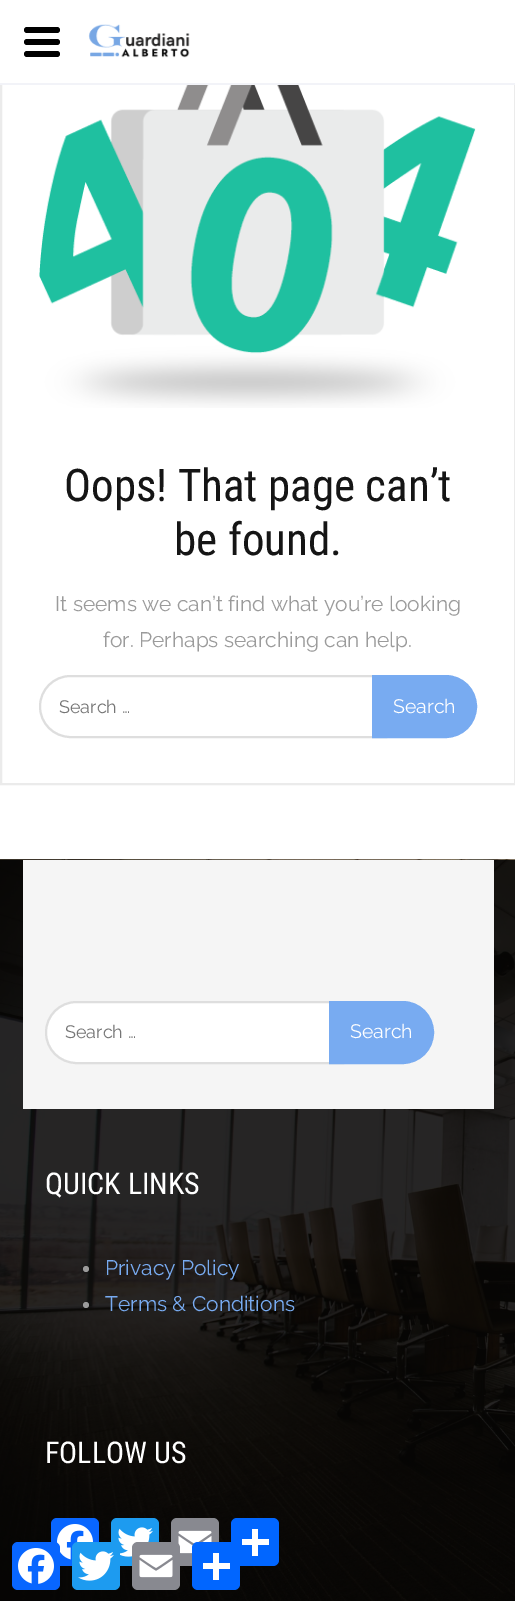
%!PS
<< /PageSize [515 1601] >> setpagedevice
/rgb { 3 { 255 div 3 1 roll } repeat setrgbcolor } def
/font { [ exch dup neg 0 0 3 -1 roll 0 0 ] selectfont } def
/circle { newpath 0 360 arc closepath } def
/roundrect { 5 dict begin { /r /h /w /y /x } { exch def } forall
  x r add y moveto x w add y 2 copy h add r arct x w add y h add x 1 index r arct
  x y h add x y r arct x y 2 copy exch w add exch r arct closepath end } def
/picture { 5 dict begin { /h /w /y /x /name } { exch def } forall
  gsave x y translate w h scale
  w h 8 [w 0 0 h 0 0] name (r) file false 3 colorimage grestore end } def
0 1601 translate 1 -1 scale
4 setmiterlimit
255 255 255 rgb
0 0 515 1601 rectfill
235 235 235 rgb
2 setlinewidth
1 30 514 754 rectstroke
255 255 255 rgb
0 29 515 54 rectfill
0 0 0 rgb
57 45 moveto 27 45 lineto 25.5 45 24 43.5 24 42 curveto 24 40.5 25.5 39 27 39 curveto 57 39 lineto 58.5 39 60 40.5 60 42 curveto 60 43.5 58.5 45 57 45 curveto closepath 57 57 moveto 27 57 lineto 25.5 57 24 55.5 24 54 curveto 24 52.5 25.5 51 27 51 curveto 57 51 lineto 58.5 51 60 52.5 60 54 curveto 60 55.5 58.5 57 57 57 curveto closepath 57 33 moveto 27 33 lineto 25.5 33 24 31.5 24 30 curveto 24 28.5 25.5 27 27 27 curveto 57 27 lineto 58.5 27 60 28.5 60 30 curveto 60 31.5 58.5 33 57 33 curveto closepath fill
(img/1.rgb) 88 24 102 34 picture
242 243 248 rgb
0 83 515 2 rectfill
(img/2.rgb) 39 85 437 323 picture
222 222 222 rgb
40 676 376 61 30.5 roundrect stroke
120 171 241 rgb
373 676 moveto 445.5 676 lineto 462.5 676 476 689.5 476 706.5 curveto 476 723.5 462.5 737 445.5 737 curveto 373 737 lineto closepath gsave fill grestore
stroke
(img/3.rgb) 0 859 515 742 picture
245 245 245 rgb
23 860 471 249 rectfill
255 255 255 rgb
46 1002 327 61 30.5 roundrect gsave fill grestore
222 222 222 rgb
stroke
120 171 241 rgb
330 1002 moveto 402.5 1002 lineto 419.5 1002 433 1015.5 433 1032.5 curveto 433 1049.5 419.5 1063 402.5 1063 curveto 330 1063 lineto closepath gsave fill grestore
stroke
155 155 155 rgb
86 1269 3 circle fill
86 1305 3 circle fill
8 102 255 rgb
51 1518 48 48 6 roundrect fill
(img/4.rgb) 57 1524 36 36 picture
29 155 240 rgb
111 1518 48 48 6 roundrect fill
(img/5.rgb) 118 1527 35 30 picture
136 137 144 rgb
171 1518 48 48 6 roundrect fill
(img/6.rgb) 178 1530 34 24 picture
1 102 255 rgb
231 1518 48 48 6 roundrect fill
255 255 255 rgb
252 1529 6 27 rectfill
242 1539 27 6 rectfill
8 102 255 rgb
12 1542 48 48 6 roundrect fill
(img/4.rgb) 18 1548 36 36 picture
29 155 240 rgb
72 1542 48 48 6 roundrect fill
(img/7.rgb) 78 1551 36 30 picture
136 137 144 rgb
132 1542 48 48 6 roundrect fill
(img/6.rgb) 139 1554 34 24 picture
1 102 255 rgb
192 1542 48 48 6 roundrect fill
255 255 255 rgb
213 1553 6 27 rectfill
203 1563 27 6 rectfill
/RobotoCondensed-Regular 45 font
21 21 21 rgb
64 501 moveto (Oops! That page can’t) show
174 555 moveto (be found.) show
/Raleway-Regular 21 font
155 155 155 rgb
55 611 moveto (It seems we can’t find what you’re looking) show
103 647 moveto (for. Perhaps searching can help.) show
/Raleway-Regular 18 font
117 117 117 rgb
59 713 moveto (Search …) show
/Raleway-Regular 19.5 font
255 255 255 rgb
393 713 moveto (Search) show
/Raleway-Regular 18 font
117 117 117 rgb
65 1038 moveto (Search …) show
/Raleway-Regular 19.5 font
255 255 255 rgb
350 1038 moveto (Search) show
/RobotoCondensed-Regular 30 font
45 1194 moveto (QUICK LINKS) show
/Raleway-Regular 21 font
120 171 241 rgb
105 1275 moveto (Privacy Policy) show
105 1311 moveto (Terms & Conditions) show
/RobotoCondensed-Regular 30 font
255 255 255 rgb
45 1463 moveto (FOLLOW US) show
showpage
